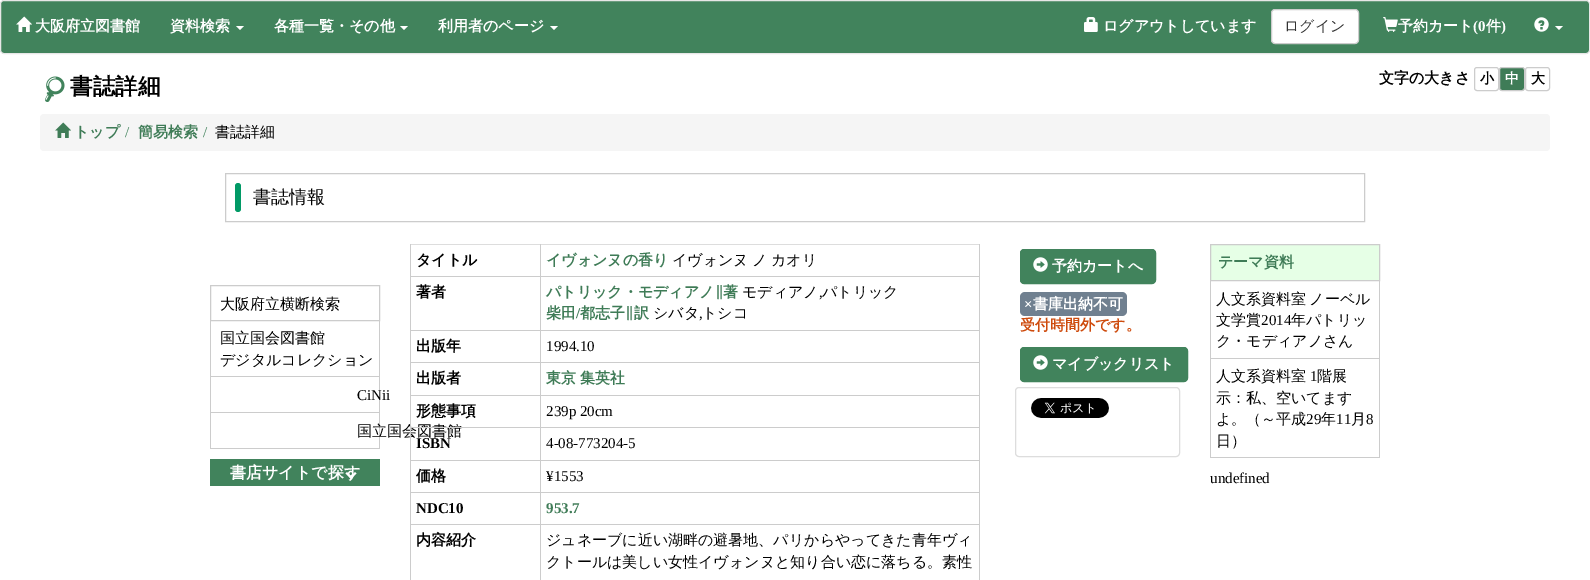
%!PS
<< /PageSize [1590 580] >> setpagedevice
/rgb { 3 { 255 div 3 1 roll } repeat setrgbcolor } def
/font { [ exch dup neg 0 0 3 -1 roll 0 0 ] selectfont } def
/roundrect { 5 dict begin { /r /h /w /y /x } { exch def } forall
  x r add y moveto x w add y 2 copy h add r arct x w add y h add x 1 index r arct
  x y h add x y r arct x y 2 copy exch w add exch r arct closepath end } def
/picture { 5 dict begin { /h /w /y /x /name } { exch def } forall
  gsave x y translate w h scale
  w h 8 [w 0 0 h 0 0] name (r) file false 3 colorimage grestore end } def
0 580 translate 1 -1 scale
4 setmiterlimit
255 255 255 rgb
0 0 1590 580 rectfill
65 131 92 rgb
0.5 0.5 1589 53 3.5 roundrect gsave fill grestore
231 231 231 rgb
stroke
(img/1.rgb) 16 16 16 16 picture
255 255 255 rgb
236 26 moveto 244 26 lineto 240 30 lineto closepath fill
400 26 moveto 408 26 lineto 404 30 lineto closepath fill
550 26 moveto 558 26 lineto 554 30 lineto closepath fill
(img/2.rgb) 1084 17 14 15 picture
1271.5 9.5 87 34 3.5 roundrect gsave fill grestore
204 204 204 rgb
stroke
(img/3.rgb) 1383 17 15 15 picture
(img/4.rgb) 1534 17 15 15 picture
255 255 255 rgb
1555 26 moveto 1563 26 lineto 1559 30 lineto closepath fill
(img/5.rgb) 45 76 20 26 picture
204 204 204 rgb
1474.5 67.5 24 23 2.5 roundrect stroke
63 124 87 rgb
1499.5 67.5 25 23 2.5 roundrect gsave fill grestore
204 204 204 rgb
stroke
1525.5 67.5 24 23 2.5 roundrect stroke
245 245 245 rgb
40 114 1510 37 4 roundrect fill
(img/6.rgb) 55 122 16 16 picture
204 204 204 rgb
225.5 173.5 1139 48 rectstroke
1 154 102 rgb
235 183 6 29 3 roundrect fill
204 204 204 rgb
210.5 285.5 169 35 rectstroke
[
  [379 321 1 128 204 204 204]
  [210 376 170 1 204 204 204]
  [210 321 1 56 204 204 204]
  [210 412 170 1 204 204 204]
  [210 377 1 36 204 204 204]
  [210 448 170 1 204 204 204]
  [210 413 1 36 204 204 204]
  [210 459 170 27 65 131 92]
] { aload pop rgb rectfill } forall
255 255 255 rgb
356.5 473.5 moveto 351 479 lineto 349.5 477.5 lineto 355 472 lineto closepath fill
352.5 477.5 moveto 351 479 lineto 345.5 473.5 lineto 347 472 lineto closepath fill
[
  [410 244 570 1 221 221 221]
  [979 276 1 304 204 204 204]
  [979 244 1 33 204 204 204]
  [540 524 1 56 204 204 204]
  [540 524 440 1 204 204 204]
  [540 492 1 33 204 204 204]
  [540 492 440 1 204 204 204]
  [540 460 1 33 204 204 204]
  [540 460 440 1 204 204 204]
  [540 427 1 34 204 204 204]
  [540 427 440 1 204 204 204]
  [540 395 1 33 204 204 204]
  [540 395 440 1 204 204 204]
  [540 362 1 34 204 204 204]
  [540 362 440 1 204 204 204]
  [540 330 1 33 204 204 204]
  [540 330 440 1 204 204 204]
  [540 276 1 55 204 204 204]
  [540 276 440 1 204 204 204]
  [540 244 1 33 204 204 204]
  [410 524 1 56 204 204 204]
  [410 524 131 1 204 204 204]
  [410 492 1 33 204 204 204]
  [410 492 131 1 204 204 204]
  [410 460 1 33 204 204 204]
  [410 460 131 1 204 204 204]
] { aload pop rgb rectfill } forall
65 131 92 rgb
1020.5 249.5 135 34 3.5 roundrect gsave fill grestore
stroke
(img/7.rgb) 1033 257 15 15 picture
112 128 144 rgb
1020 292 107 24 5 roundrect fill
65 131 92 rgb
1020.5 347.5 167 34 3.5 roundrect gsave fill grestore
stroke
(img/7.rgb) 1033 355 15 15 picture
221 221 221 rgb
1015.5 387.5 164 69 3.5 roundrect stroke
(img/8.rgb) 1031 398 78 20 picture
230 255 230 rgb
1210.5 244.5 moveto 1379.5 244.5 lineto 1379.5 280.5 lineto 1210.5 280.5 lineto closepath gsave fill grestore
204 204 204 rgb
stroke
[
  [1379 281 1 177 204 204 204]
  [1210 358 170 1 204 204 204]
  [1210 281 1 78 204 204 204]
  [1210 457 170 1 204 204 204]
  [1210 359 1 99 204 204 204]
] { aload pop rgb rectfill } forall
/WenQuanYiZenHei-Bold 15 font
255 255 255 rgb
[
  [(大阪府立図書館) 35 31]
  [(資料検索) 170 31]
  [(各種一覧・その他) 274 31]
  [(利用者のページ) 438 31]
  [(ログアウトしています) 1103 31]
] { aload pop moveto show } forall
/WenQuanYiZenHei-Medium 15 font
51 51 51 rgb
1284 31 moveto (ログイン) show
/WenQuanYiZenHei-Bold 15 font
255 255 255 rgb
1398 31 moveto (予約カート) show
/LiberationSerif-Bold 15 font
1473 31 moveto (\(0) show
/WenQuanYiZenHei-Bold 15 font
1486 31 moveto (件) show
/LiberationSerif-Bold 15 font
1501 31 moveto (\)) show
/WenQuanYiZenHei-Bold 22.5 font
0 0 0 rgb
70 94 moveto (書誌詳細) show
/WenQuanYiZenHei-Bold 15 font
1379 83 moveto (文字の大きさ) show
/WenQuanYiZenHei-Bold 14 font
1480 83 moveto (小) show
255 255 255 rgb
1505 83 moveto (中) show
0 0 0 rgb
1531 83 moveto (大) show
/WenQuanYiZenHei-Bold 15 font
63 124 87 rgb
74 137 moveto (トップ) show
/LiberationSerif-Regular 15 font
65 131 92 rgb
125 137 moveto (/) show
/WenQuanYiZenHei-Bold 15 font
63 124 87 rgb
138 137 moveto (簡易検索) show
/LiberationSerif-Regular 15 font
65 131 92 rgb
203 137 moveto (/) show
/WenQuanYiZenHei-Medium 15 font
0 0 0 rgb
215 137 moveto (書誌詳細) show
/WenQuanYiZenHei-Medium 18 font
253 203 moveto (書誌情報) show
/WenQuanYiZenHei-Medium 15 font
[
  [(大阪府立横断検索) 220 309]
  [(国立国会図書館) 220 343]
  [(デジタルコレクション) 220 365]
] { aload pop moveto show } forall
/LiberationSerif-Regular 15 font
357 400 moveto (CiNii) show
/WenQuanYiZenHei-Medium 15 font
357 436 moveto (国立国会図書館) show
/WenQuanYiZenHei-Bold 16 font
255 255 255 rgb
230 478 moveto (書店サイトで探す) show
/WenQuanYiZenHei-Bold 15 font
0 0 0 rgb
416 265 moveto (タイトル) show
63 124 87 rgb
546 265 moveto (イヴォンヌの香り) show
/WenQuanYiZenHei-Medium 15 font
0 0 0 rgb
672 265 moveto -1 0 32 (イヴォンヌ ノ カオリ) widthshow
/WenQuanYiZenHei-Bold 15 font
416 297 moveto (著者) show
63 124 87 rgb
546 297 moveto (パトリック・モディアノ∥著) show
/WenQuanYiZenHei-Medium 15 font
0 0 0 rgb
742 297 moveto (モディアノ) show
/LiberationSerif-Regular 15 font
819 297 moveto (,) show
/WenQuanYiZenHei-Medium 15 font
822 297 moveto (パトリック) show
/WenQuanYiZenHei-Bold 15 font
63 124 87 rgb
546 318 moveto (柴田) show
/LiberationSerif-Bold 15 font
576 318 moveto (/) show
/WenQuanYiZenHei-Bold 15 font
580 318 moveto (都志子∥訳) show
/WenQuanYiZenHei-Medium 15 font
0 0 0 rgb
653 318 moveto (シバタ) show
/LiberationSerif-Regular 15 font
699 318 moveto (,) show
/WenQuanYiZenHei-Medium 15 font
702 318 moveto (トシコ) show
/WenQuanYiZenHei-Bold 15 font
416 351 moveto (出版年) show
/LiberationSerif-Regular 15 font
546 351 moveto (1994.10) show
/WenQuanYiZenHei-Bold 15 font
416 383 moveto (出版者) show
63 124 87 rgb
546 383 moveto (東京) show
580 383 moveto (集英社) show
0 0 0 rgb
416 416 moveto (形態事項) show
/LiberationSerif-Regular 15 font
546 416 moveto (239p 20cm) show
[
  [410 427 1 34 204 204 204]
  [410 427 131 1 204 204 204]
  [410 395 1 33 204 204 204]
  [410 395 131 1 204 204 204]
  [410 362 1 34 204 204 204]
  [410 362 131 1 204 204 204]
  [410 330 1 33 204 204 204]
  [410 330 131 1 204 204 204]
  [410 276 1 55 204 204 204]
  [410 276 131 1 204 204 204]
  [410 244 1 33 204 204 204]
] { aload pop rgb rectfill } forall
/LiberationSerif-Bold 15 font
0 0 0 rgb
416 448 moveto (ISBN) show
/LiberationSerif-Regular 15 font
546 448 moveto (4-08-773204-5) show
/WenQuanYiZenHei-Bold 15 font
416 481 moveto (価格) show
/LiberationSerif-Regular 15 font
546 481 moveto (¥1553) show
/LiberationSerif-Bold 15 font
416 513 moveto (NDC10) show
63 124 87 rgb
546 513 moveto (953.7) show
/WenQuanYiZenHei-Bold 15 font
0 0 0 rgb
416 545 moveto (内容紹介) show
/WenQuanYiZenHei-Medium 15 font
546 545 moveto (ジュネーブに近い湖畔の避暑地、パリからやってきた青年ヴィ) show
546 567 moveto (クトールは美しい女性イヴォンヌと知り合い恋に落ちる。素性) show
/WenQuanYiZenHei-Bold 15 font
255 255 255 rgb
1052 271 moveto (予約カートへ) show
/LiberationSerif-Bold 15 font
1024 309 moveto (×) show
/WenQuanYiZenHei-Bold 15 font
1033 309 moveto (書庫出納不可) show
206 75 13 rgb
1020 330 moveto (受付時間外です。) show
255 255 255 rgb
1052 369 moveto (マイブックリスト) show
63 124 87 rgb
1218 267 moveto (テーマ資料) show
/WenQuanYiZenHei-Medium 15 font
0 0 0 rgb
1216 304 moveto -1 0 32 (人文系資料室 ノーベル) widthshow
1216 325 moveto (文学賞) show
/LiberationSerif-Regular 15 font
1261 325 moveto (2014) show
/WenQuanYiZenHei-Medium 15 font
[
  [(年パトリッ) 1291 325]
  [(ク・モディアノさん) 1216 346]
  [(人文系資料室) 1216 381]
] { aload pop moveto show } forall
/LiberationSerif-Regular 15 font
1310 381 moveto (1) show
/WenQuanYiZenHei-Medium 15 font
[
  [(階展) 1317 381]
  [(示：私、空いてます) 1216 403]
  [(よ。（～平成) 1216 424]
] { aload pop moveto show } forall
/LiberationSerif-Regular 15 font
1306 424 moveto (29) show
/WenQuanYiZenHei-Medium 15 font
1321 424 moveto (年) show
/LiberationSerif-Regular 15 font
1336 424 moveto (11) show
/WenQuanYiZenHei-Medium 15 font
1351 424 moveto (月) show
/LiberationSerif-Regular 15 font
1366 424 moveto (8) show
/WenQuanYiZenHei-Medium 15 font
1216 446 moveto (日）) show
/LiberationSerif-Regular 15 font
1210 483 moveto (undefined) show
showpage
